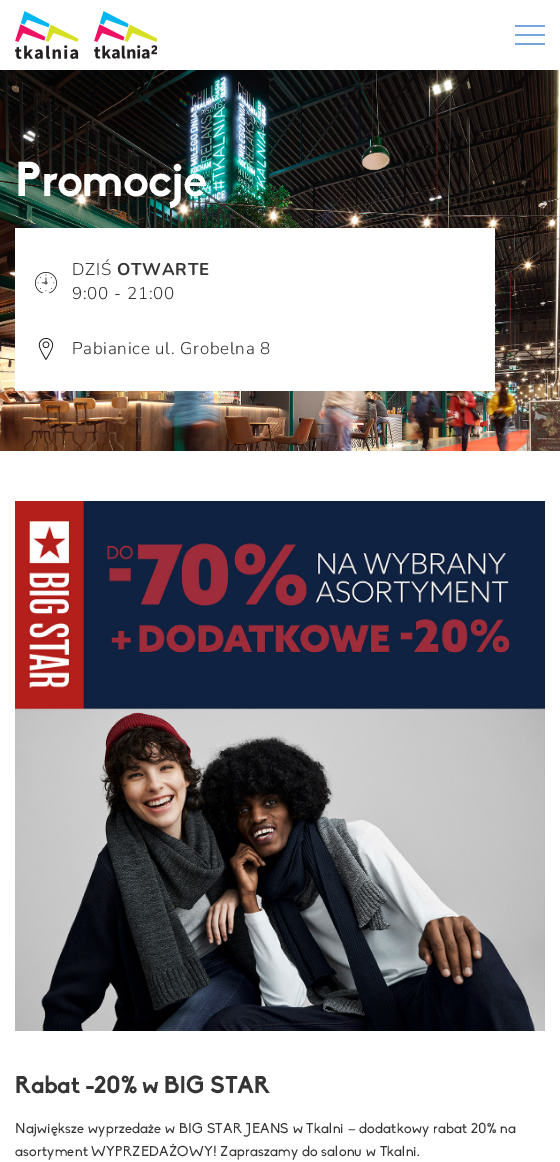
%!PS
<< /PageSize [560 1162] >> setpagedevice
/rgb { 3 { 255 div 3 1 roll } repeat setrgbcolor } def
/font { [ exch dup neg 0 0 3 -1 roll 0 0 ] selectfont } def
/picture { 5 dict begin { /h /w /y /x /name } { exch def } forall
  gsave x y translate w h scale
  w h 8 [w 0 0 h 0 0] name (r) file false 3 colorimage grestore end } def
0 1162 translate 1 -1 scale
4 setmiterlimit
255 255 255 rgb
0 0 560 1162 rectfill
(img/1.rgb) 15 11 64 48 picture
(img/2.rgb) 94 11 63 48 picture
[
  [515 25 30 2 118 165 221]
  [515 34 30 2 118 165 221]
  [515 43 30 2 118 165 221]
] { aload pop rgb rectfill } forall
(img/3.rgb) 0 70 560 381 picture
255 255 255 rgb
15 228 480 163 rectfill
(img/4.rgb) 35 272 22 21 picture
(img/5.rgb) 38 338 16 22 picture
(img/6.rgb) 15 501 530 530 picture
/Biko-Bold 48 font
15 196 moveto -0.75 0 (Promocje) ashow
/Nunito-Light 17 font
53 53 53 rgb
72 275 moveto 0.7 0 (DZIŚ) ashow
/Nunito-Bold 17 font
117 275 moveto 0.7 0 (OTWARTE) ashow
/Nunito-Light 17 font
72 299 moveto 0.7 0 (9:00 - 21:00) ashow
72 354 moveto 0.7 0 (Pabianice ul. Grobelna 8) ashow
/Biko-Bold 24 font
15 1093 moveto -0.3 0 (Rabat -20% w BIG STAR) ashow
/Biko-Regular 14 font
15 1133 moveto 0.3 0 (Największe wyprzedaże w BIG STAR JEANS w Tkalni – dodatkowy rabat 20% na) ashow
15 1156 moveto 0.3 0 (asortyment WYPRZEDAŻOWY! Zapraszamy do salonu w Tkalni.) ashow
showpage
